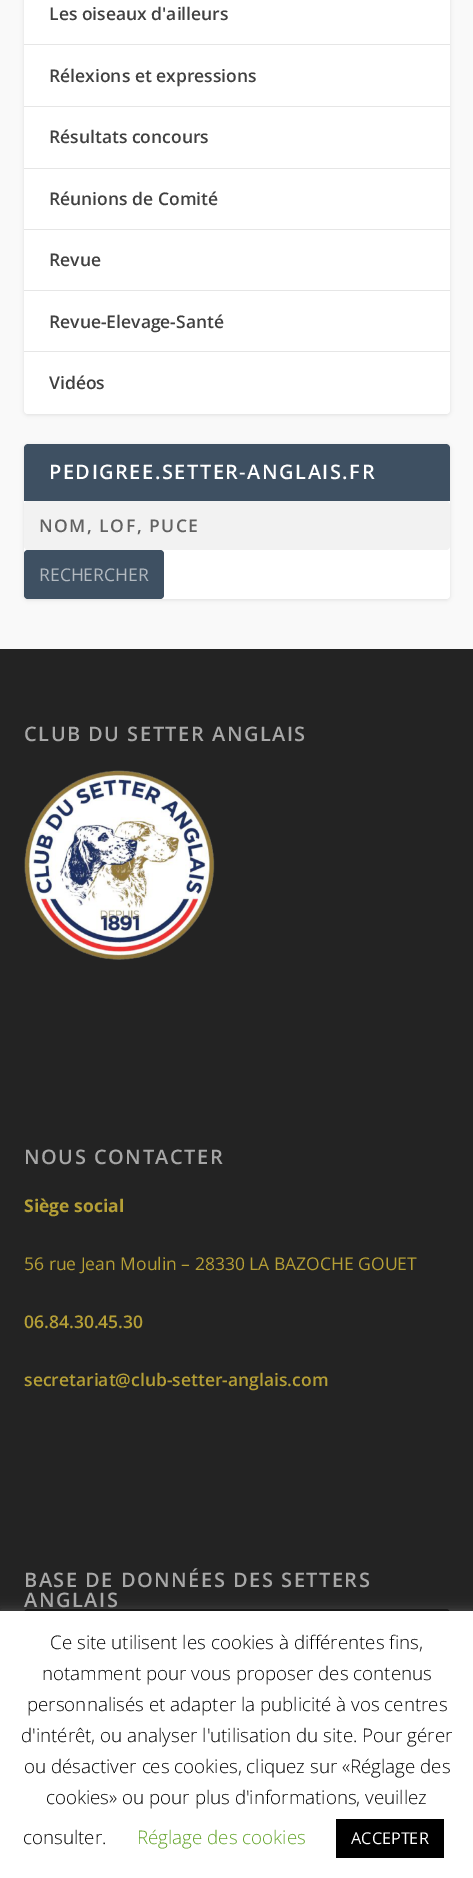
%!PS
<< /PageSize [473 1878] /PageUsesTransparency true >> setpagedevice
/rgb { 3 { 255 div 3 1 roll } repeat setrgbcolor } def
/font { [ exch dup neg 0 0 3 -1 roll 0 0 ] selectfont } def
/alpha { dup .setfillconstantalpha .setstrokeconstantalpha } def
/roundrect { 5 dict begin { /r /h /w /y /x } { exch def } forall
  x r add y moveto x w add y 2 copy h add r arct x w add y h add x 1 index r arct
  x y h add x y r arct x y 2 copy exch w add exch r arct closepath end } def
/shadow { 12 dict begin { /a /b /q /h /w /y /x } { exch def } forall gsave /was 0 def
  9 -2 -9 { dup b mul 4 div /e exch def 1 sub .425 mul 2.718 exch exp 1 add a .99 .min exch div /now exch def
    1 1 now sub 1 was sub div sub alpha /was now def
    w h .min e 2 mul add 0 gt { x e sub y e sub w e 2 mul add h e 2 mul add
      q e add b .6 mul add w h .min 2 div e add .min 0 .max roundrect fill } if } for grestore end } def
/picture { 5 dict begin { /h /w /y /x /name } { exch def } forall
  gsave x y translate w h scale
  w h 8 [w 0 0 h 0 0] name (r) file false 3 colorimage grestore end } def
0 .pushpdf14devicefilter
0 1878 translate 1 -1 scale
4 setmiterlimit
249 249 249 rgb
0 0 473 1878 rectfill
0 0 0 rgb
24 -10 426 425 4 2 0.1 shadow
255 255 255 rgb
24 -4 426 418 4 roundrect fill
[
  [24 44 426 1 230 230 230]
  [24 106 426 1 230 230 230]
  [24 168 426 1 230 230 230]
  [24 229 426 1 230 230 230]
  [24 290 426 1 230 230 230]
  [24 351 426 1 230 230 230]
] { aload pop rgb rectfill } forall
0 0 0 rgb
24 445 426 155 4 2 0.1 shadow
255 255 255 rgb
24 444 426 155 4 roundrect fill
62 80 98 rgb
28 444 moveto 446 444 lineto 448 444 450 446 450 448 curveto 450 501 lineto 24 501 lineto 24 448 lineto 24 446 26 444 28 444 curveto closepath fill
242 242 242 rgb
24 501 426 49 4 roundrect fill
62 80 98 rgb
24 550 140 49 4 roundrect fill
35 35 35 rgb
0 649 473 962 rectfill
(img/1.rgb) 24 770 191 190 picture
0 0 0 rgb
24 1609 426 49 4 roundrect fill
172 171 171 rgb
0 1610 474 268 0 6 0.3 shadow
255 255 255 rgb
0 1611 473 267 rectfill
0 0 0 rgb
336 1819 108 39 rectfill
/OpenSans-SemiBold 17.5 font
64 64 64 rgb
[
  [(Les oiseaux d'ailleurs) 49 20]
  [(Rélexions et expressions) 49 82]
  [(Résultats concours) 49 143]
  [(Réunions de Comité) 49 205]
  [(Revue) 49 266]
  [(Revue-Elevage-Santé) 49 328]
  [(Vidéos) 49 389]
] { aload pop moveto show } forall
/OpenSans-SemiBold 20 font
255 255 255 rgb
49 479 moveto 1.5 0 (PEDIGREE.SETTER-ANGLAIS.FR) ashow
/OpenSans-SemiBold 17.5 font
97 97 97 rgb
39 532 moveto 1.5 0 (NOM, LOF, PUCE) ashow
/OpenSans-Regular 17.5 font
178 185 192 rgb
39 581 moveto (RECHERCHER) show
/OpenSans-SemiBold 20 font
167 167 167 rgb
24 741 moveto 1.5 0 (CLUB DU SETTER ANGLAIS) ashow
24 1164 moveto 1.5 0 (NOUS CONTACTER) ashow
/OpenSans-Bold 17.5 font
181 159 54 rgb
24 1212 moveto (Siège social) show
/OpenSans-Regular 17.5 font
24 1270 moveto (56 rue Jean Moulin – 28330 LA BAZOCHE GOUET) show
/OpenSans-SemiBold 17.5 font
24 1328 moveto (06.84.30.45.30) show
24 1386 moveto (secretariat@club-setter-anglais.com) show
/OpenSans-SemiBold 20 font
167 167 167 rgb
24 1587 moveto 1.5 0 (BASE DE DONNÉES DES SETTERS) ashow
24 1607 moveto 1.5 0 (ANGLAIS) ashow
/OpenSans-Light 18.75 font
0 0 0 rgb
[
  [(Ce site utilisent les cookies à différentes fins,) 50 1649]
  [(notamment pour vous proposer des contenus) 42 1680]
  [(personnalisés et adapter la publicité à vos centres) 27 1711]
  [(d'intérêt, ou analyser l'utilisation du site. Pour gérer) 21 1742]
  [(ou désactiver ces cookies, cliquez sur «Réglage des) 24 1773]
  [(cookies» ou pour plus d'informations, veuillez) 46 1804]
  [(consulter.) 23 1844]
] { aload pop moveto show } forall
98 163 41 rgb
137 1844 moveto (Réglage des cookies) show
/OpenSans-Regular 16.25 font
255 255 255 rgb
351 1844 moveto (ACCEPTER) show
.poppdf14devicefilter showpage
